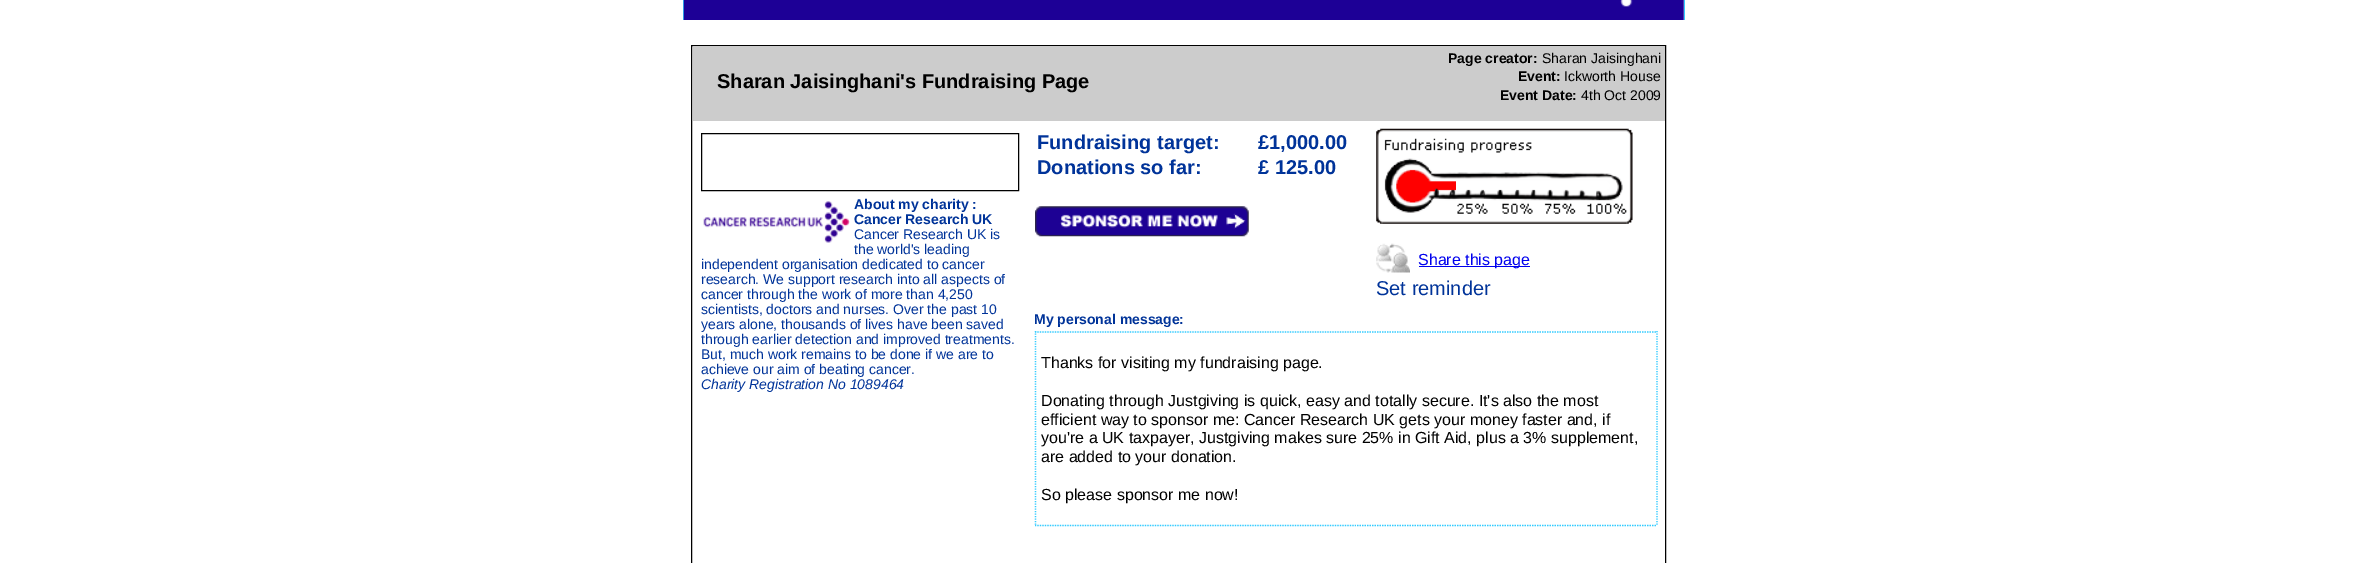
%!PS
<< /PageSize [2366 563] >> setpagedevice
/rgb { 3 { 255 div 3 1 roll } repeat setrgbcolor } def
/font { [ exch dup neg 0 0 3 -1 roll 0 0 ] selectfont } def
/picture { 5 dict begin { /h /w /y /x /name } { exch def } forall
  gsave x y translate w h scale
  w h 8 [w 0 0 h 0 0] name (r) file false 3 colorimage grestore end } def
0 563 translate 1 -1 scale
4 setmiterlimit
255 255 255 rgb
0 0 2366 563 rectfill
51 204 255 rgb
1684 0 1 20 rectfill
683 0 1 20 rectfill
(img/1.rgb) 683 0 1001 20 picture
0 0 0 rgb
691.5 45.5 974 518 rectstroke
204 204 204 rgb
693 46 972 75 rectfill
0 0 0 rgb
701.5 133.5 317 57 rectstroke
(img/2.rgb) 703 201 147 42 picture
(img/3.rgb) 1035 206 214 31 picture
255 0 0 rgb
1436 181 20 10 rectfill
(img/4.rgb) 1376 128 257 96 picture
(img/5.rgb) 1376 243 34 30 picture
0 0 238 rgb
1419 266 111 1 rectfill
51 204 255 rgb
1.2 setlinewidth
[1.25 1.25] 0 setdash
1035 332 moveto 1657.5 332 lineto stroke
1657 331 moveto 1657 526 lineto stroke
1035 525.5 moveto 1657.5 525.5 lineto stroke
1035.5 331 moveto 1035.5 526 lineto stroke
/LiberationSans-Bold 20 font
0 0 0 rgb
717 88 moveto (Sharan Jaisinghani's Fundraising Page) show
/LiberationSans-Bold 14 font
1448 63 moveto (Page creator:) show
/LiberationSans-Regular 14 font
1542 63 moveto (Sharan Jaisinghani) show
/LiberationSans-Bold 14 font
1518 81 moveto (Event:) show
/LiberationSans-Regular 14 font
1564 81 moveto (Ickworth House) show
/LiberationSans-Bold 14 font
1500 100 moveto (Event Date:) show
/LiberationSans-Regular 14 font
1581 100 moveto (4th Oct 2009) show
/LiberationSans-Bold 14 font
0 51 153 rgb
854 209 moveto (About my charity :) show
854 224 moveto (Cancer Research UK) show
/LiberationSans-Regular 14 font
[
  [(Cancer Research UK is) 854 239]
  [(the world's leading) 854 254]
  [(independent organisation dedicated to cancer) 701 269]
  [(research. We support research into all aspects of) 701 284]
  [(cancer through the work of more than 4,250) 701 299]
  [(scientists, doctors and nurses. Over the past 10) 701 314]
  [(years alone, thousands of lives have been saved) 701 329]
  [(through earlier detection and improved treatments.) 701 344]
  [(But, much work remains to be done if we are to) 701 359]
  [(achieve our aim of beating cancer.) 701 374]
] { aload pop moveto show } forall
/LiberationSans-Italic 14 font
701 389 moveto (Charity Registration No 1089464) show
/LiberationSans-Bold 20 font
[
  [(Fundraising target:) 1037 149]
  [(£1,000.00) 1258 149]
  [(Donations so far:) 1037 174]
  [(£ 125.00) 1258 174]
] { aload pop moveto show } forall
/LiberationSans-Regular 16 font
0 0 238 rgb
1418 265 moveto (Share this page) show
/LiberationSans-Regular 20 font
0 51 153 rgb
1376 295 moveto (Set reminder) show
/LiberationSans-Bold 14 font
1034 324 moveto (My personal message:) show
/LiberationSans-Regular 16 font
0 0 0 rgb
[
  [(Thanks for visiting my fundraising page.) 1041 368]
  [(Donating through Justgiving is quick, easy and totally secure. It's also the most) 1041 406]
  [(efficient way to sponsor me: Cancer Research UK gets your money faster and, if) 1041 425]
  [(you're a UK taxpayer, Justgiving makes sure 25% in Gift Aid, plus a 3% supplement,) 1041 443]
  [(are added to your donation.) 1041 462]
  [(So please sponsor me now!) 1041 500]
] { aload pop moveto show } forall
showpage
